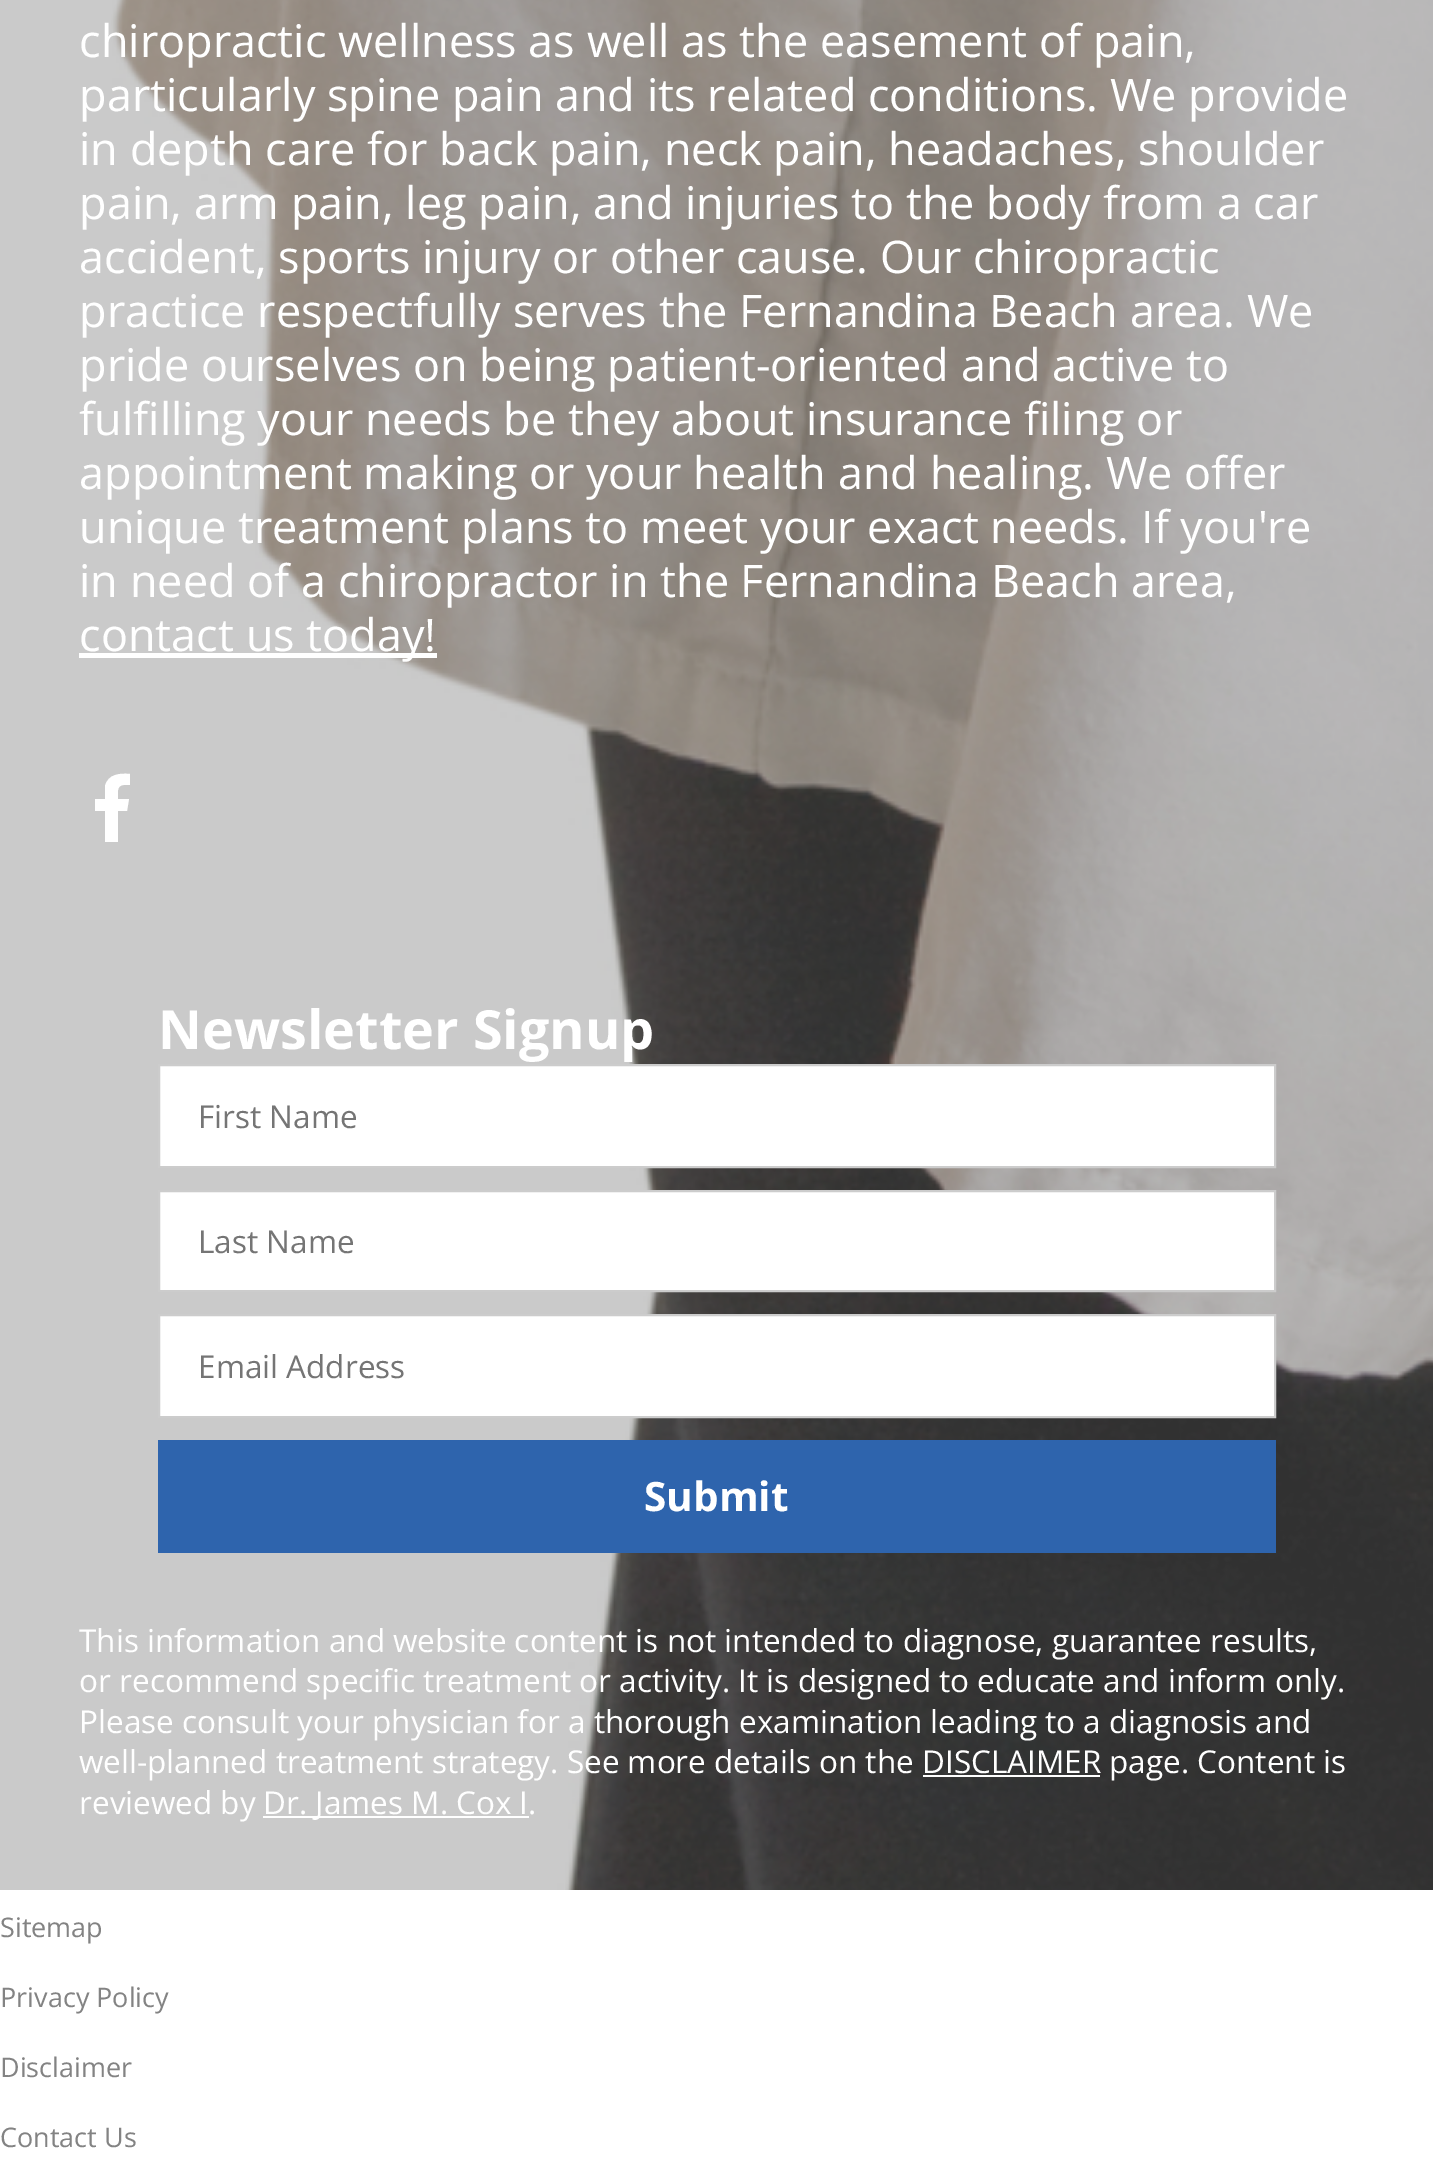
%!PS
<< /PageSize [1433 2168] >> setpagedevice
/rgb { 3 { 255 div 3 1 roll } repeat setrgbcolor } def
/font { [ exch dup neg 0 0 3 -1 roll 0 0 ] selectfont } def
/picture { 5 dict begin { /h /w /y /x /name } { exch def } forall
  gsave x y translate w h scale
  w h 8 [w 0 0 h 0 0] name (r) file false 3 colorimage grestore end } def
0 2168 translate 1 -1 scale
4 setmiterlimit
202 202 202 rgb
0 0 1433 2168 rectfill
(img/1.rgb) 111 0 1322 1890 picture
255 255 255 rgb
79 653 358 5 rectfill
124 785 moveto 130 785 lineto 130 774 lineto 120 773 108 774 105 786 curveto 105 799 lineto 95 799 lineto 95 811 lineto 105 811 lineto 105 842 lineto 118 842 lineto 118 811 lineto 127 811 lineto 129 799 lineto 118 799 lineto 118 794 116 785 124 785 curveto closepath fill
159 1065 moveto 1275 1065 lineto 1275 1167 lineto 159 1167 lineto closepath gsave fill grestore
204 204 204 rgb
2 setlinewidth
stroke
255 255 255 rgb
159 1191 moveto 1275 1191 lineto 1275 1291 lineto 159 1291 lineto closepath gsave fill grestore
204 204 204 rgb
stroke
255 255 255 rgb
159 1315 moveto 1275 1315 lineto 1275 1417 lineto 159 1417 lineto closepath gsave fill grestore
204 204 204 rgb
stroke
[
  [158 1440 1118 113 46 100 173]
  [923 1775 177 2 255 255 255]
  [263 1816 266 2 255 255 255]
  [0 1890 1433 278 255 255 255]
] { aload pop rgb rectfill } forall
/OpenSans-Regular 45 font
[
  [(chiropractic wellness as well as the easement of pain,) 79 57]
  [(particularly spine pain and its related conditions. We provide) 79 111]
  [(in depth care for back pain, neck pain, headaches, shoulder) 79 165]
  [(pain, arm pain, leg pain, and injuries to the body from a car) 79 219]
  [(accident, sports injury or other cause. Our chiropractic) 79 273]
  [(practice respectfully serves the Fernandina Beach area. We) 79 327]
  [(pride ourselves on being patient-oriented and active to) 79 381]
  [(fulfilling your needs be they about insurance filing or) 79 435]
  [(appointment making or your health and healing. We offer) 79 489]
  [(unique treatment plans to meet your exact needs. If you're) 79 543]
  [(in need of a chiropractor in the Fernandina Beach area,) 79 597]
  [(contact us today!) 79 651]
] { aload pop moveto show } forall
/OpenSans-Bold 54 font
158 1049 moveto (Newsletter Signup) show
/OpenSans-Regular 31.5 font
117 117 117 rgb
[
  [(First Name) 198 1128]
  [(Last Name) 198 1253]
  [(Email Address) 198 1378]
] { aload pop moveto show } forall
/OpenSans-Bold 40.5 font
255 255 255 rgb
644 1511 moveto (Submit) show
/OpenSans-Regular 31.5 font
[
  [(This information and website content is not intended to diagnose, guarantee results,) 79 1652]
  [(or recommend specific treatment or activity. It is designed to educate and inform only.) 79 1692]
  [(Please consult your physician for a thorough examination leading to a diagnosis and) 79 1733]
  [(well-planned treatment strategy. See more details on the DISCLAIMER page. Content is) 79 1773]
  [(reviewed by) 79 1814]
  [(Dr. James M. Cox I.) 263 1814]
] { aload pop moveto show } forall
/OpenSans-Regular 27 font
131 131 131 rgb
[
  [(Sitemap) 0 1937]
  [(Privacy Policy) 0 2007]
  [(Disclaimer) 0 2077]
  [(Contact Us) 0 2147]
] { aload pop moveto show } forall
showpage
